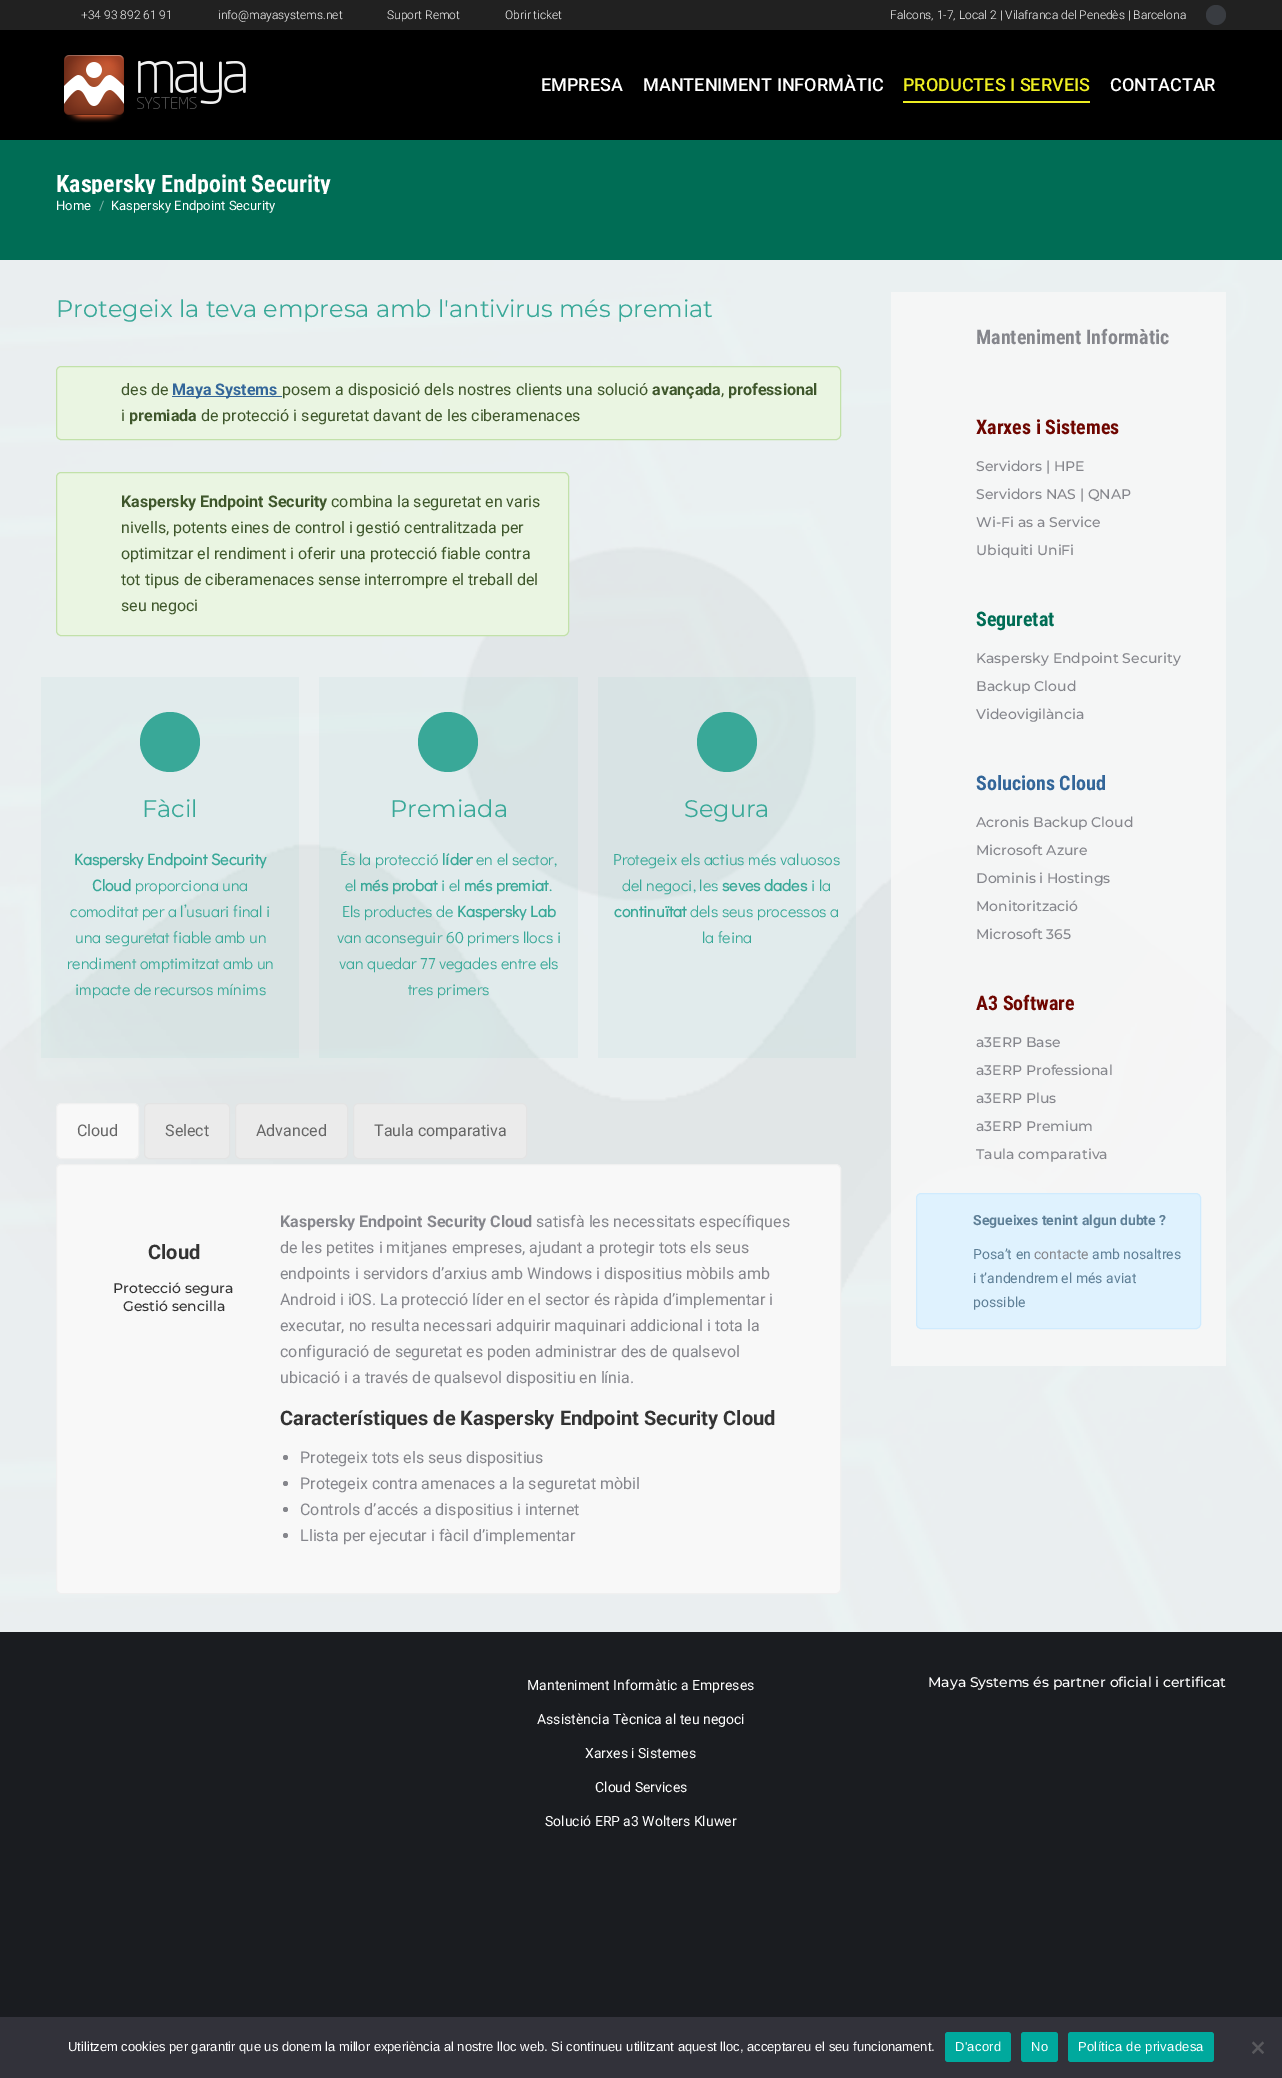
%!PS
<< /PageSize [1282 2078] /PageUsesTransparency true >> setpagedevice
/rgb { 3 { 255 div 3 1 roll } repeat setrgbcolor } def
/font { [ exch dup neg 0 0 3 -1 roll 0 0 ] selectfont } def
/alpha { dup .setfillconstantalpha .setstrokeconstantalpha } def
/circle { newpath 0 360 arc closepath } def
/roundrect { 5 dict begin { /r /h /w /y /x } { exch def } forall
  x r add y moveto x w add y 2 copy h add r arct x w add y h add x 1 index r arct
  x y h add x y r arct x y 2 copy exch w add exch r arct closepath end } def
/picture { 5 dict begin { /h /w /y /x /name } { exch def } forall
  gsave x y translate w h scale
  w h 8 [w 0 0 h 0 0] name (r) file false 3 colorimage grestore end } def
0 .pushpdf14devicefilter
0 2078 translate 1 -1 scale
4 setmiterlimit
255 255 255 rgb
0 0 1282 2078 rectfill
(img/1.rgb) 0 260 1282 1372 picture
0 0 0 rgb
0 30 1282 110 rectfill
33 33 33 rgb
0 0 1282 30 rectfill
57 60 65 rgb
1216 15 10 circle fill
(img/2.rgb) 64 55 182 68 picture
238 238 34 rgb
903 101 187 2 rectfill
0 109 85 rgb
0 140 1282 120 rectfill
234 245 226 rgb
56.5 366.5 784 73 4.5 roundrect gsave fill grestore
194 225 169 rgb
stroke
51 102 153 rgb
172 396 110 1 rectfill
234 245 226 rgb
56.5 472.5 512 163 4.5 roundrect gsave fill grestore
194 225 169 rgb
stroke
0.05 alpha
57 168 152 rgb
41 677 258 381 rectfill
1 alpha
170 742 30 circle fill
0.05 alpha
319 677 259 381 rectfill
1 alpha
448 742 30 circle fill
0.05 alpha
598 677 258 381 rectfill
1 alpha
727 742 30 circle fill
248 248 248 rgb
56.5 1103.5 82 55 4.5 roundrect gsave fill grestore
240 240 240 rgb
stroke
235 235 235 rgb
144.5 1103.5 85 55 4.5 roundrect gsave fill grestore
227 227 227 rgb
stroke
235 235 235 rgb
235.5 1103.5 112 55 4.5 roundrect gsave fill grestore
227 227 227 rgb
stroke
235 235 235 rgb
353.5 1103.5 173 55 4.5 roundrect gsave fill grestore
227 227 227 rgb
stroke
248 248 248 rgb
56.5 1164.5 784 429 4.5 roundrect gsave fill grestore
240 240 240 rgb
stroke
133 134 140 rgb
285.5 1457.5 2.5 circle fill
285.5 1483.5 2.5 circle fill
285.5 1509.5 2.5 circle fill
285.5 1535.5 2.5 circle fill
0.87 alpha
247 247 247 rgb
891 292 335 1074 rectfill
1 alpha
223 242 254 rgb
916.5 1193.5 284 135 4.5 roundrect gsave fill grestore
207 235 254 rgb
stroke
26 28 32 rgb
0 1632 1282 385 rectfill
50 50 58 rgb
0 2017 1282 61 rectfill
0 169 157 rgb
945 2032 66 30 3 roundrect fill
1021 2032 37 30 3 roundrect fill
1068 2032 146 30 3 roundrect fill
89 89 93 rgb
1262.5 2041.5 moveto 1264 2043 lineto 1253.5 2054 lineto 1252 2052.5 lineto closepath fill
1252 2043 moveto 1253.5 2041.5 lineto 1264 2052.5 lineto 1262.5 2054 lineto closepath fill
/Roboto-Light 12 font
255 255 255 rgb
[
  [(+34 93 892 61 91) 81 19]
  [(info@mayasystems.net) 218 19]
  [(Suport Remot) 387 19]
  [(Obrir ticket) 505 19]
  [(Falcons, 1-7, Local 2 | Vilafranca del Penedès | Barcelona) 890 19]
] { aload pop moveto show } forall
/Roboto-Medium 18 font
541 91 moveto (EMPRESA) show
643 91 moveto (MANTENIMENT INFORMÀTIC) show
238 238 34 rgb
903 91 moveto (PRODUCTES I SERVEIS) show
255 255 255 rgb
1110 91 moveto (CONTACTAR) show
gsave
56 174 275 20 rectclip
/RobotoCondensed-Bold 24 font
56 192 moveto (Kaspersky Endpoint Security) show
grestore
/Roboto-Regular 13 font
56 210 moveto (Home) show
128 182 170 rgb
99 210 moveto (/) show
255 255 255 rgb
111 210 moveto (Kaspersky Endpoint Security) show
/Montserrat-Regular 24 font
57 168 152 rgb
56 317 moveto (Protegeix la teva empresa amb l'antivirus més premiat) show
/Roboto-Regular 16 font
62 86 43 rgb
121 395 moveto (des de) show
/Roboto-Bold 16 font
51 102 153 rgb
172 395 moveto (Maya Systems) show
/Roboto-Regular 16 font
62 86 43 rgb
282 395 moveto (posem a disposició dels nostres clients una solució) show
/Roboto-Bold 16 font
652 395 moveto (avançada) show
/Roboto-Regular 16 font
721 395 moveto (,) show
/Roboto-Bold 16 font
728 395 moveto (professional) show
/Roboto-Regular 16 font
121 421 moveto (i) show
/Roboto-Bold 16 font
129 421 moveto (premiada) show
/Roboto-Regular 16 font
201 421 moveto (de protecció i seguretat davant de les ciberamenaces) show
/Roboto-Bold 16 font
121 507 moveto (Kaspersky Endpoint Security) show
/Roboto-Regular 16 font
[
  [(combina la seguretat en varis) 331 507]
  [(nivells, potents eines de control i gestió centralitzada per) 121 533]
  [(optimitzar el rendiment i oferir una protecció fiable contra) 121 559]
  [(tot tipus de ciberamenaces sense interrompre el treball del) 121 585]
  [(seu negoci) 121 611]
] { aload pop moveto show } forall
/Montserrat-Regular 24 font
57 168 152 rgb
142 817 moveto (Fàcil) show
/DidactGothic-Bold 16 font
74 865 moveto (Kaspersky Endpoint Security) show
92 891 moveto (Cloud) show
/DidactGothic-Regular 16 font
[
  [(proporciona una) 135 891]
  [(comoditat per a l’usuari final i) 70 917]
  [(una seguretat fiable amb un) 75 943]
  [(rendiment omptimitzat amb un) 67 969]
  [(impacte de recursos mínims) 75 995]
] { aload pop moveto show } forall
/Montserrat-Regular 24 font
390 817 moveto (Premiada) show
/DidactGothic-Regular 16 font
340 865 moveto (És la protecció) show
/DidactGothic-Bold 16 font
442 865 moveto (líder) show
/DidactGothic-Regular 16 font
476 865 moveto (en el sector,) show
345 891 moveto (el) show
/DidactGothic-Bold 16 font
360 891 moveto (més probat) show
/DidactGothic-Regular 16 font
441 891 moveto (i el) show
/DidactGothic-Bold 16 font
464 891 moveto (més premiat) show
/DidactGothic-Regular 16 font
549 891 moveto (.) show
342 917 moveto (Els productes de) show
/DidactGothic-Bold 16 font
457 917 moveto (Kaspersky Lab) show
/DidactGothic-Regular 16 font
[
  [(van aconseguir 60 primers llocs i) 337 943]
  [(van quedar 77 vegades entre els) 339 969]
  [(tres primers) 408 995]
] { aload pop moveto show } forall
/Montserrat-Regular 24 font
684 817 moveto (Segura) show
/DidactGothic-Regular 16 font
613 865 moveto (Protegeix els actius més valuosos) show
622 891 moveto (del negoci, les) show
/DidactGothic-Bold 16 font
722 891 moveto (seves dades) show
/DidactGothic-Regular 16 font
811 891 moveto (i la) show
/DidactGothic-Bold 16 font
614 917 moveto (continuïtat) show
/DidactGothic-Regular 16 font
690 917 moveto (dels seus processos a) show
702 943 moveto (la feina) show
/Roboto-Regular 16 font
102 102 102 rgb
[
  [(Cloud) 77 1136]
  [(Select) 165 1136]
  [(Advanced) 256 1136]
  [(Taula comparativa) 374 1136]
] { aload pop moveto show } forall
/Roboto-Bold 20 font
51 51 51 rgb
148 1259 moveto (Cloud) show
/Montserrat-Medium 14 font
113 1293 moveto (Protecció segura) show
123 1311 moveto (Gestió sencilla) show
/Roboto-Bold 16 font
133 134 140 rgb
280 1227 moveto (Kaspersky Endpoint Security Cloud) show
/Roboto-Regular 16 font
[
  [(satisfà les necessitats específiques) 536 1227]
  [(de les petites i mitjanes empreses, ajudant a protegir tots els seus) 280 1253]
  [(endpoints i servidors d’arxius amb Windows i dispositius mòbils amb) 280 1279]
  [(Android i iOS. La protecció líder en el sector és ràpida d’implementar i) 280 1305]
  [(executar, no resulta necessari adquirir maquinari addicional i tota la) 280 1331]
  [(configuració de seguretat es poden administrar des de qualsevol) 280 1357]
  [(ubicació i a través de qualsevol dispositiu en línia.) 280 1383]
] { aload pop moveto show } forall
/Roboto-Bold 20 font
51 51 51 rgb
280 1425 moveto (Característiques de Kaspersky Endpoint Security Cloud) show
/Roboto-Regular 16 font
133 134 140 rgb
[
  [(Protegeix tots els seus dispositius) 300 1463]
  [(Protegeix contra amenaces a la seguretat mòbil) 300 1489]
  [(Controls d’accés a dispositius i internet) 300 1515]
  [(Llista per ejecutar i fàcil d’implementar) 300 1541]
] { aload pop moveto show } forall
/RobotoCondensed-Bold 20 font
976 344 moveto (Manteniment Informàtic) show
110 6 0 rgb
976 434 moveto (Xarxes i Sistemes) show
/Montserrat-Medium 14 font
133 134 140 rgb
[
  [(Servidors | HPE) 976 471]
  [(Servidors NAS | QNAP) 976 499]
  [(Wi-Fi as a Service) 976 527]
  [(Ubiquiti UniFi) 976 555]
] { aload pop moveto show } forall
/RobotoCondensed-Bold 20 font
0 109 85 rgb
976 626 moveto (Seguretat) show
/Montserrat-Medium 14 font
133 134 140 rgb
[
  [(Kaspersky Endpoint Security) 976 663]
  [(Backup Cloud) 976 691]
  [(Videovigilància) 976 719]
] { aload pop moveto show } forall
/RobotoCondensed-Bold 20 font
51 102 153 rgb
976 790 moveto (Solucions Cloud) show
/Montserrat-Medium 14 font
133 134 140 rgb
[
  [(Acronis Backup Cloud) 976 827]
  [(Microsoft Azure) 976 855]
  [(Dominis i Hostings) 976 883]
  [(Monitorització) 976 911]
  [(Microsoft 365) 976 939]
] { aload pop moveto show } forall
/RobotoCondensed-Bold 20 font
110 6 0 rgb
976 1010 moveto (A3 Software) show
/Montserrat-Medium 14 font
133 134 140 rgb
[
  [(a3ERP Base) 976 1047]
  [(a3ERP Professional) 976 1075]
  [(a3ERP Plus) 976 1103]
  [(a3ERP Premium) 976 1131]
  [(Taula comparativa) 976 1159]
] { aload pop moveto show } forall
/Roboto-Bold 14 font
94 127 150 rgb
973 1225 moveto (Segueixes tenint algun dubte ?) show
/Roboto-Regular 14 font
973 1259 moveto (Posa’t en) show
133 134 140 rgb
1034 1259 moveto (contacte) show
94 127 150 rgb
[
  [(amb nosaltres) 1092 1259]
  [(i t’andendrem el més aviat) 973 1283]
  [(possible) 973 1307]
] { aload pop moveto show } forall
255 255 255 rgb
[
  [(Manteniment Informàtic a Empreses) 527 1690]
  [(Assistència Tècnica al teu negoci) 537 1724]
  [(Xarxes i Sistemes) 585 1758]
  [(Cloud Services) 595 1792]
  [(Solució ERP a3 Wolters Kluwer) 545 1826]
] { aload pop moveto show } forall
/Montserrat-Medium 14 font
928 1687 moveto (Maya Systems és partner oficial i certificat) show
/LiberationSans-Regular 13 font
68 2051 moveto (Utilitzem cookies per garantir que us donem la millor experiència al nostre lloc web. Si continueu utilitzant aquest lloc, acceptareu el seu funcionament.) show
955 2051 moveto 0.25 0 (D'acord) ashow
1031 2051 moveto 0.25 0 (No) ashow
1078 2051 moveto 0.25 0 (Política de privadesa) ashow
.poppdf14devicefilter showpage
